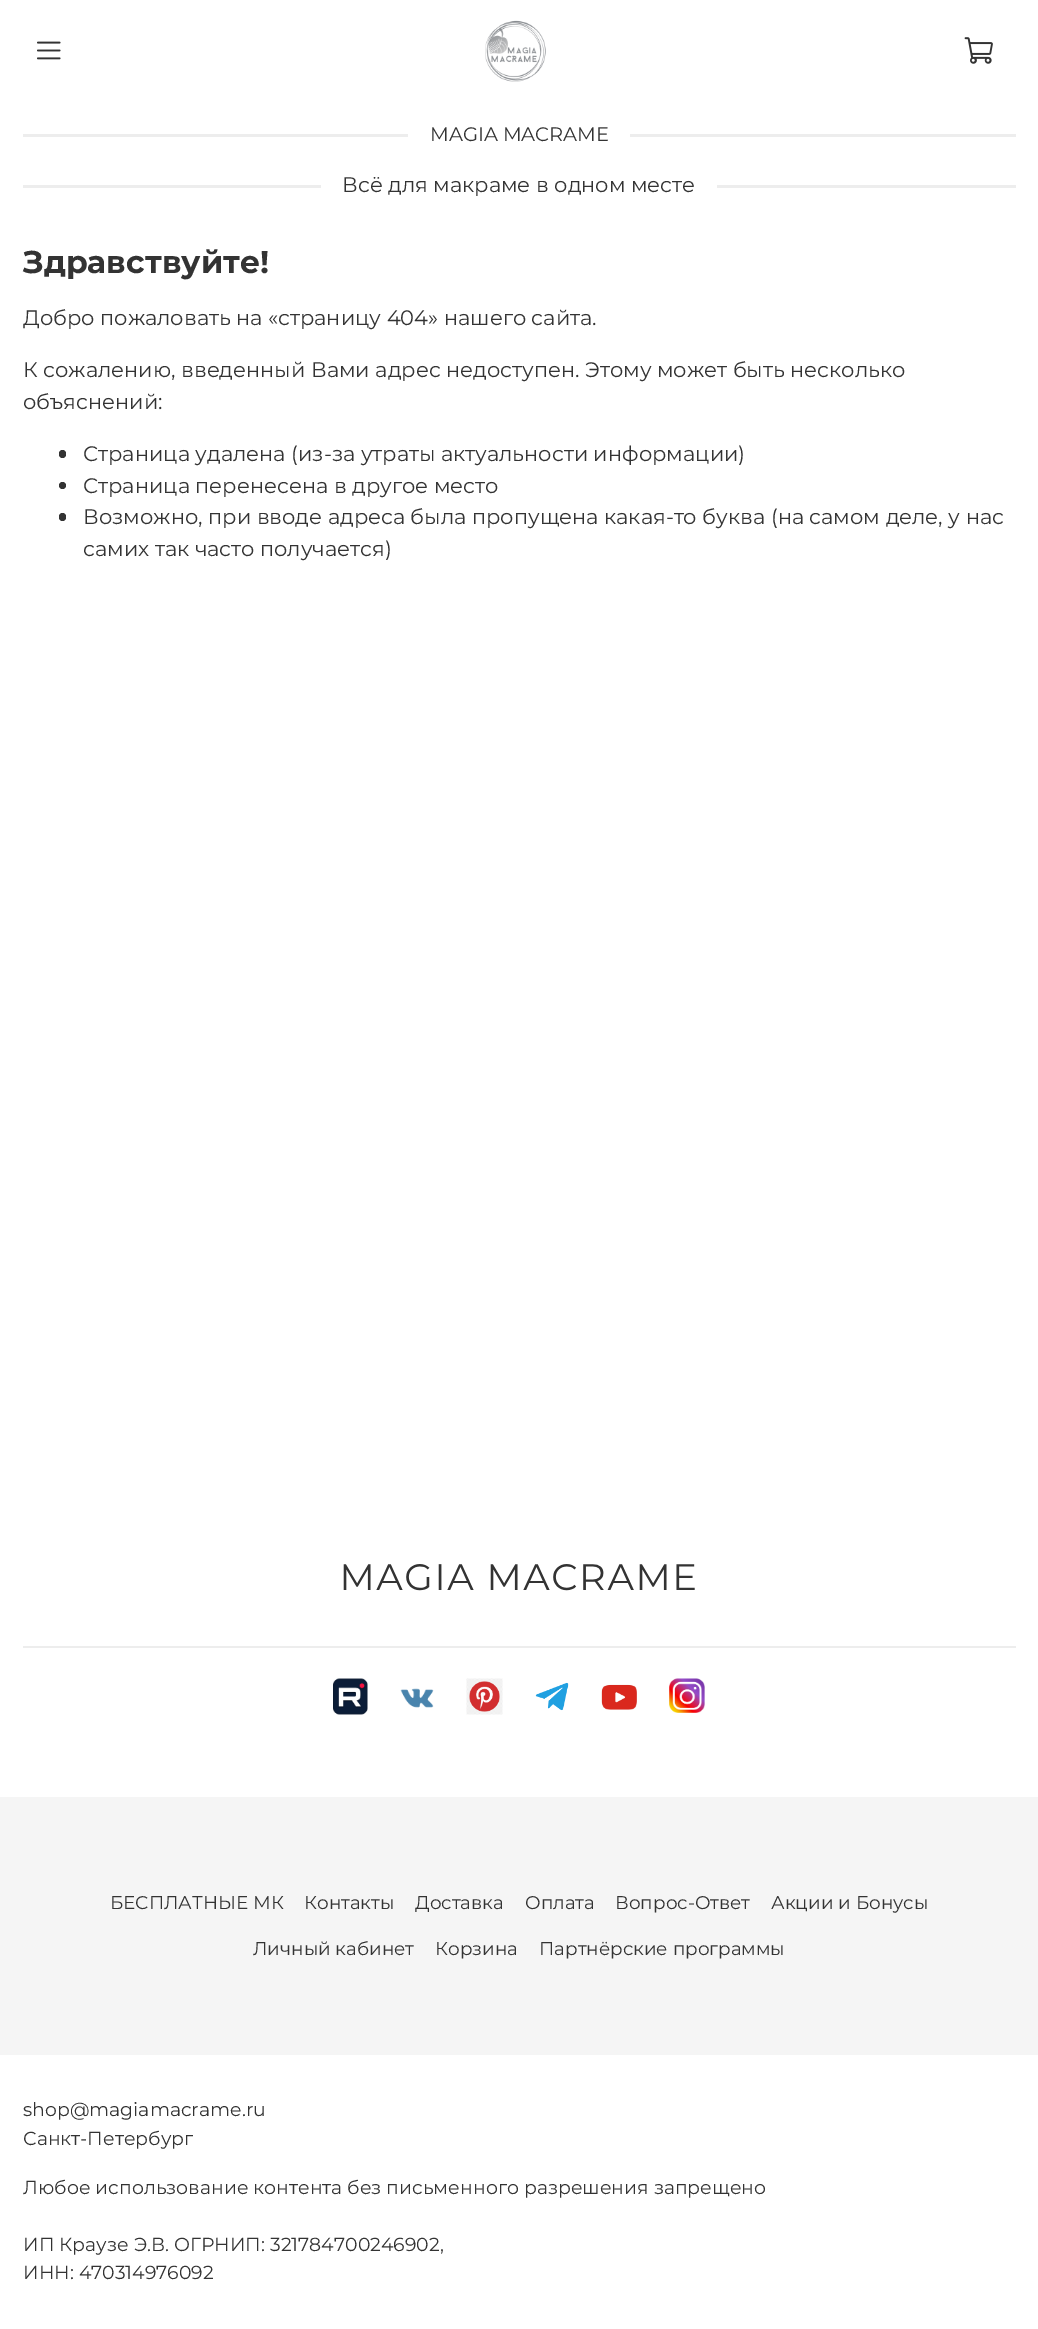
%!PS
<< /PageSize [1038 2329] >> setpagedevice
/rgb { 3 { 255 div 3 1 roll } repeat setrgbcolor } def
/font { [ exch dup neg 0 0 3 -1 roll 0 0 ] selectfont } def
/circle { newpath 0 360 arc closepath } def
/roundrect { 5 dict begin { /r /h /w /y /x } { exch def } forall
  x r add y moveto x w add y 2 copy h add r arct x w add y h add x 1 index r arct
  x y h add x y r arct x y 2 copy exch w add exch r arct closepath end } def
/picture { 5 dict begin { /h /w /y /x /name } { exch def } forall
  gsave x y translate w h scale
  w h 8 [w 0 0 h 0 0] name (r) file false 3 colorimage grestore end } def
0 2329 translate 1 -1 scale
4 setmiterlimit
255 255 255 rgb
0 0 1038 2329 rectfill
(img/1.rgb) 37 41 24 19 picture
(img/2.rgb) 485 20 61 62 picture
(img/3.rgb) 964 37 29 27 picture
[
  [23 134 385 3 237 237 237]
  [630 134 386 3 237 237 237]
  [23 185 298 3 237 237 237]
  [717 185 299 3 237 237 237]
] { aload pop rgb rectfill } forall
51 51 51 rgb
59 450 7 8 3.5 roundrect fill
62.5 485.5 3.5 circle fill
59 513 7 8 3.5 roundrect fill
(img/4.rgb) 343 1564 352 27 picture
237 237 237 rgb
23 1646 993 2 rectfill
(img/5.rgb) 333 1678 35 37 picture
(img/6.rgb) 400 1688 34 20 picture
(img/7.rgb) 466 1678 37 37 picture
(img/8.rgb) 535 1682 34 29 picture
(img/9.rgb) 601 1684 36 26 picture
(img/10.rgb) 669 1678 36 35 picture
245 245 245 rgb
0 1797 1038 258 rectfill
/Montserrat-Regular 19.5 font
51 51 51 rgb
430 141 moveto (MAGIA MACRAME) show
/Montserrat-Regular 21 font
342 192 moveto (Всё для макраме в одном месте) show
/Montserrat-Bold 31.5 font
23 273 moveto (Здравствуйте!) show
/Montserrat-Regular 21 font
[
  [(Добро пожаловать на «страницу 404» нашего сайта.) 23 325]
  [(К сожалению, введенный Вами адрес недоступен. Этому может быть несколько) 23 377]
  [(объяснений:) 23 409]
  [(Страница удалена \(из-за утраты актуальности информации\)) 83 461]
  [(Страница перенесена в другое место) 83 493]
  [(Возможно, при вводе адреса была пропущена какая-то буква \(на самом деле, у нас) 83 524]
  [(самих так часто получается\)) 83 556]
] { aload pop moveto show } forall
/Montserrat-Regular 18.4 font
[
  [(БЕСПЛАТНЫЕ МК) 110 1909]
  [(Контакты) 304 1909]
  [(Доставка) 415 1909]
  [(Оплата) 525 1909]
  [(Вопрос-Ответ) 615 1909]
  [(Акции и Бонусы) 771 1909]
  [(Личный кабинет) 253 1955]
  [(Корзина) 435 1955]
  [(Партнёрские программы) 539 1955]
] { aload pop moveto show } forall
/Montserrat-Regular 18.9 font
[
  [(shop@magiamacrame.ru) 23 2116]
  [(Санкт-Петербург) 23 2145]
  [(Любое использование контента без письменного разрешения запрещено) 23 2194]
  [(ИП Краузе Э.В. ОГРНИП: 321784700246902,) 23 2251]
  [(ИНН: 470314976092) 23 2279]
] { aload pop moveto show } forall
showpage
